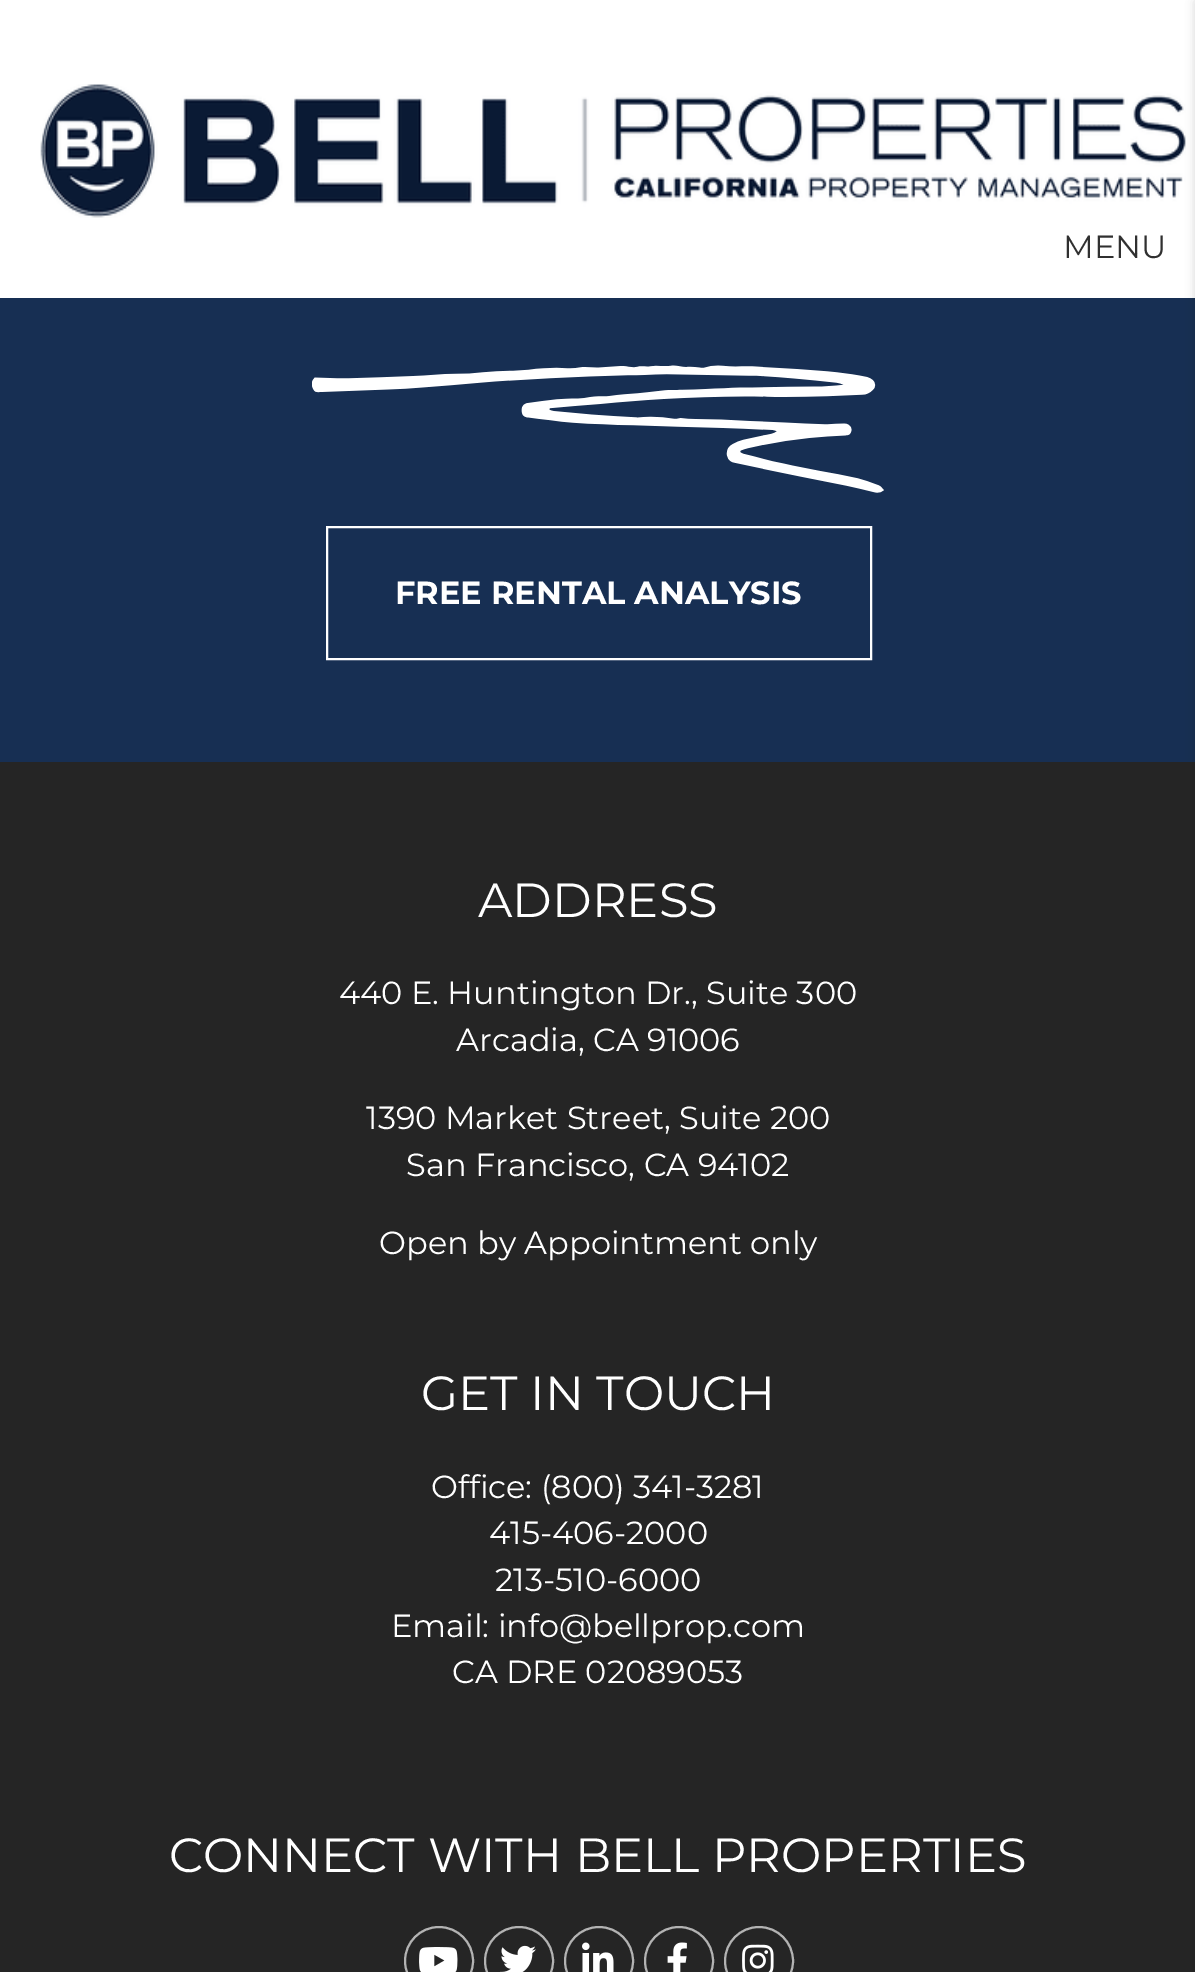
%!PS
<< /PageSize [1195 1972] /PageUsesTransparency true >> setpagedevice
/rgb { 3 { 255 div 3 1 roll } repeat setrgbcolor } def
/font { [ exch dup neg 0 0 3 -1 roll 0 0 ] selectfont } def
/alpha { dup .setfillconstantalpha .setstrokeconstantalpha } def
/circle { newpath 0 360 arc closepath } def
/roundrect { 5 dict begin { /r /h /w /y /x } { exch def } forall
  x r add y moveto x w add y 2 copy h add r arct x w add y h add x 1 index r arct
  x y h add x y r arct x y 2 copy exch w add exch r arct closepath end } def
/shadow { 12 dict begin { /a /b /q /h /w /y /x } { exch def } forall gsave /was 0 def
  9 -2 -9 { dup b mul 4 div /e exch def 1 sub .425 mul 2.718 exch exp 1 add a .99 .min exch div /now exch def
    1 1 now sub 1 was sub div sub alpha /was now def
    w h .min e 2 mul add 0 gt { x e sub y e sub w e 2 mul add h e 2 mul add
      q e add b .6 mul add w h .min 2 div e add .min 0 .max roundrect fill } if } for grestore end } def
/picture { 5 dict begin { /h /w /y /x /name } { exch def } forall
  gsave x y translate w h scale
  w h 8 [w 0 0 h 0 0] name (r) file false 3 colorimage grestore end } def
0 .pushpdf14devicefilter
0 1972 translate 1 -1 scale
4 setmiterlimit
23 47 83 rgb
0 0 1195 1972 rectfill
255 255 255 rgb
0 0 1195 298 rectfill
(img/1.rgb) 40 84 1146 134 picture
37 37 37 rgb
0 762 1195 1210 rectfill
0 0 0 rgb
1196 2 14 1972 0 5 0.2 shadow
(img/2.rgb) 312 365 572 128 picture
255 255 255 rgb
2 setlinewidth
327 527 544 132 rectstroke
179 179 179 rgb
439 1961 34 circle stroke
(img/3.rgb) 419 1947 39 25 picture
519 1961 34 circle stroke
(img/4.rgb) 500 1945 36 27 picture
599 1961 34 circle stroke
(img/5.rgb) 582 1942 32 30 picture
679 1961 34 circle stroke
(img/6.rgb) 667 1942 20 30 picture
759 1961 34 circle stroke
(img/7.rgb) 742 1944 32 28 picture
/Montserrat-Regular 32 font
48 48 48 rgb
1063 258 moveto (MENU) show
/Montserrat-Bold 32 font
255 255 255 rgb
395 604 moveto (FREE RENTAL ANALYSIS) show
/Montserrat-Regular 48 font
478 917 moveto (ADDRESS) show
/Montserrat-Regular 32 font
[
  [(440 E. Huntington Dr., Suite 300) 339 1004]
  [(Arcadia, CA 91006) 456 1051]
  [(1390 Market Street, Suite 200) 366 1129]
  [(San Francisco, CA 94102) 406 1176]
  [(Open by Appointment only) 379 1254]
] { aload pop moveto show } forall
/Montserrat-Regular 48 font
421 1410 moveto (GET IN TOUCH) show
/Montserrat-Regular 32 font
[
  [(Office: \(800\) 341-3281) 431 1498]
  [(415-406-2000) 489 1544]
  [(213-510-6000) 495 1591]
  [(Email: info@bellprop.com) 391 1637]
  [(CA DRE 02089053) 452 1683]
] { aload pop moveto show } forall
/Montserrat-Regular 48 font
169 1872 moveto (CONNECT WITH BELL PROPERTIES) show
.poppdf14devicefilter showpage
